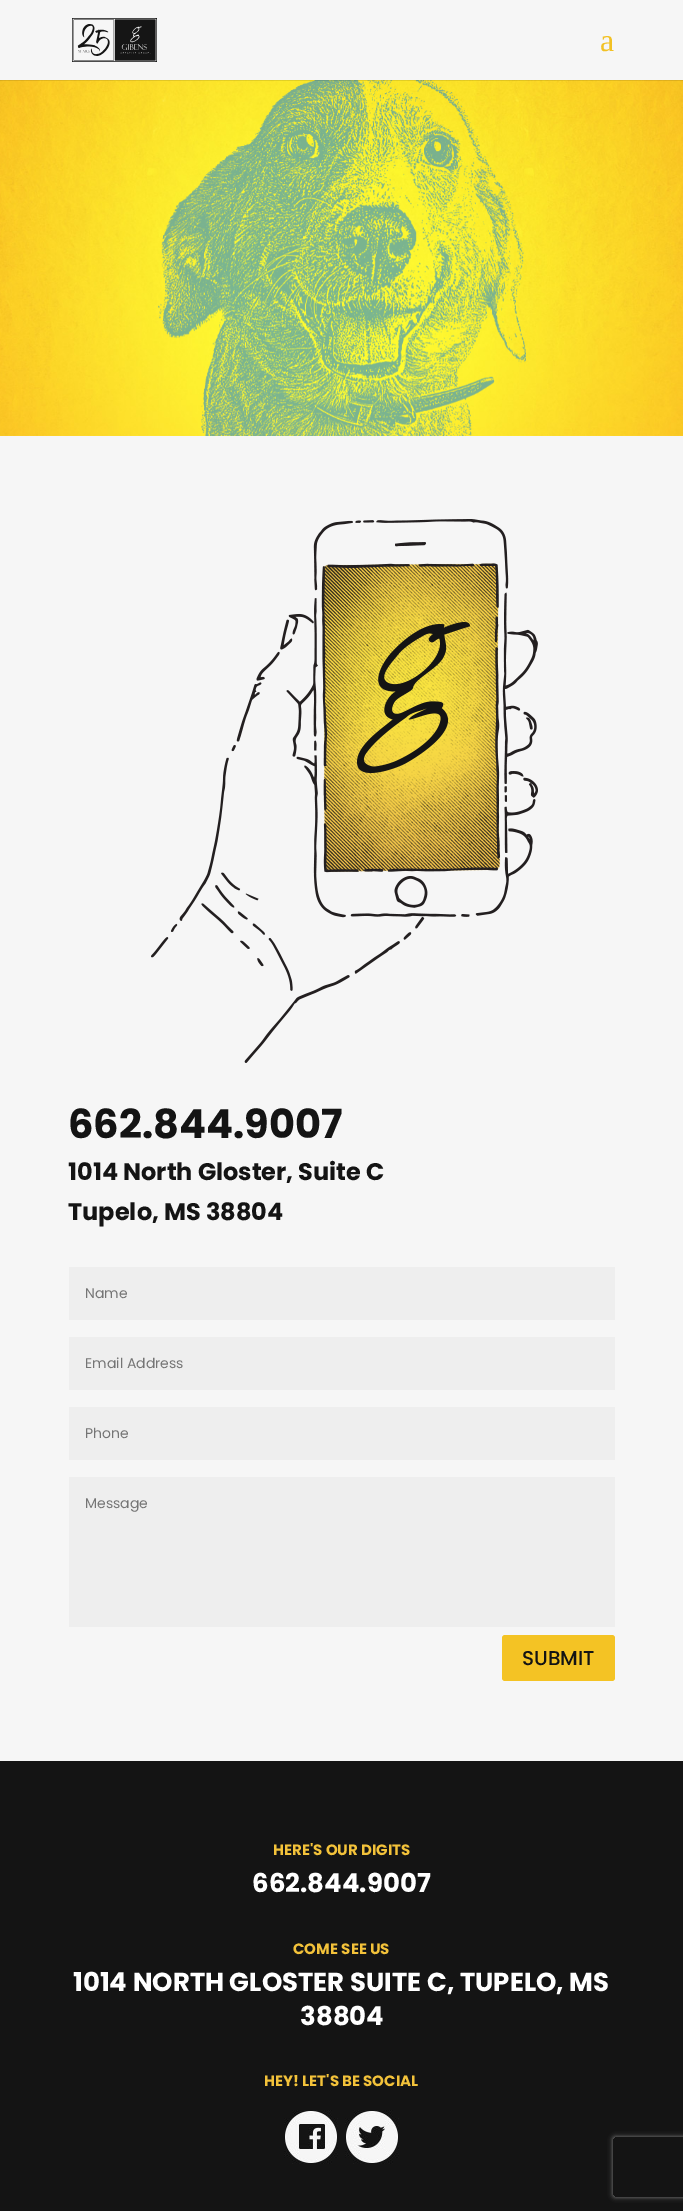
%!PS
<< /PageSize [683 2211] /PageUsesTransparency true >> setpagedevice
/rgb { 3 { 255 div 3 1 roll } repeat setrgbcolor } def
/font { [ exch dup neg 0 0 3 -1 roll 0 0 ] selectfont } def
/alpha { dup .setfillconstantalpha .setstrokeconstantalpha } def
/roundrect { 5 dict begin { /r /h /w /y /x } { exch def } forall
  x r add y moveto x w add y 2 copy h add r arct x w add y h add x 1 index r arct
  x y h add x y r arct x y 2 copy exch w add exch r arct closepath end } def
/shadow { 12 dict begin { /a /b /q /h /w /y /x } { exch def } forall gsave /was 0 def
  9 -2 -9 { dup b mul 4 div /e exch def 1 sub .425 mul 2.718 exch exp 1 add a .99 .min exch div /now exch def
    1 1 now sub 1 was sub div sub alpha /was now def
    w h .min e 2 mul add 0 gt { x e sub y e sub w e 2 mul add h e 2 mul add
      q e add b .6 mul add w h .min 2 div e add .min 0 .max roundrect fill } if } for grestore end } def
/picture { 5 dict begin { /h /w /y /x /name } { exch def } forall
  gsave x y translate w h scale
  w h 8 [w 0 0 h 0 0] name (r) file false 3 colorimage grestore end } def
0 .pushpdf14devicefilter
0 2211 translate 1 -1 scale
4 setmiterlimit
20 20 20 rgb
0 0 683 2211 rectfill
(img/2.rgb) 0 80 683 356 picture
(img/3.rgb) 158 80 368 356 picture
0.1 alpha
0 0 0 rgb
0 80 683 1 rectfill
1 alpha
246 246 246 rgb
0 0 683 80 rectfill
(img/1.rgb) 72 18 85 44 picture
0 436 683 1325 rectfill
(img/4.rgb) 151 519 387 544 picture
[
  [69 1267 546 53 238 238 238]
  [69 1337 546 53 238 238 238]
  [69 1407 546 53 238 238 238]
  [69 1477 546 150 238 238 238]
] { aload pop rgb rectfill } forall
244 195 36 rgb
502 1635 113 46 3 roundrect fill
(img/5.rgb) 284 2110 54 54 picture
(img/6.rgb) 345 2110 54 54 picture
gsave
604 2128 moveto 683 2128 lineto 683 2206 lineto 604 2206 lineto closepath 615 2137 moveto 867 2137 lineto 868 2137 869 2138 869 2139 curveto 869 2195 lineto 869 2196 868 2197 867 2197 curveto 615 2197 lineto 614 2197 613 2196 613 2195 curveto 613 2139 lineto 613 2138 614 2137 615 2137 curveto closepath eoclip newpath
128 128 128 rgb
613 2137 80 60 2 2.5 1 shadow
grestore
/LiberationSerif-Regular 32 font
242 193 36 rgb
600 51 moveto (a) show
/Poppins-Bold 40 font
20 20 20 rgb
68 1138 moveto (662.844.9007) show
/Poppins-Bold 24 font
68 1180 moveto (1014 North Gloster, Suite C) show
68 1220 moveto (Tupelo, MS 38804) show
/Poppins-Regular 14 font
117 117 117 rgb
[
  [(Name) 85 1298]
  [(Email Address) 85 1368]
  [(Phone) 85 1438]
  [(Message) 85 1508]
] { aload pop moveto show } forall
/Poppins-Medium 20 font
20 20 20 rgb
522 1665 moveto (SUBMIT) show
/Poppins-Bold 15 font
243 194 58 rgb
273 1855 moveto (HERE'S OUR DIGITS) show
/Poppins-Bold 26 font
255 255 255 rgb
252 1892 moveto (662.844.9007) show
/Poppins-Bold 15 font
243 194 58 rgb
293 1954 moveto (COME SEE US) show
/Poppins-Bold 26 font
255 255 255 rgb
73 1991 moveto (1014 NORTH GLOSTER SUITE C, TUPELO, MS) show
300 2025 moveto (38804) show
/Poppins-Bold 15 font
243 194 58 rgb
264 2086 moveto (HEY! LET'S BE SOCIAL) show
.poppdf14devicefilter showpage
